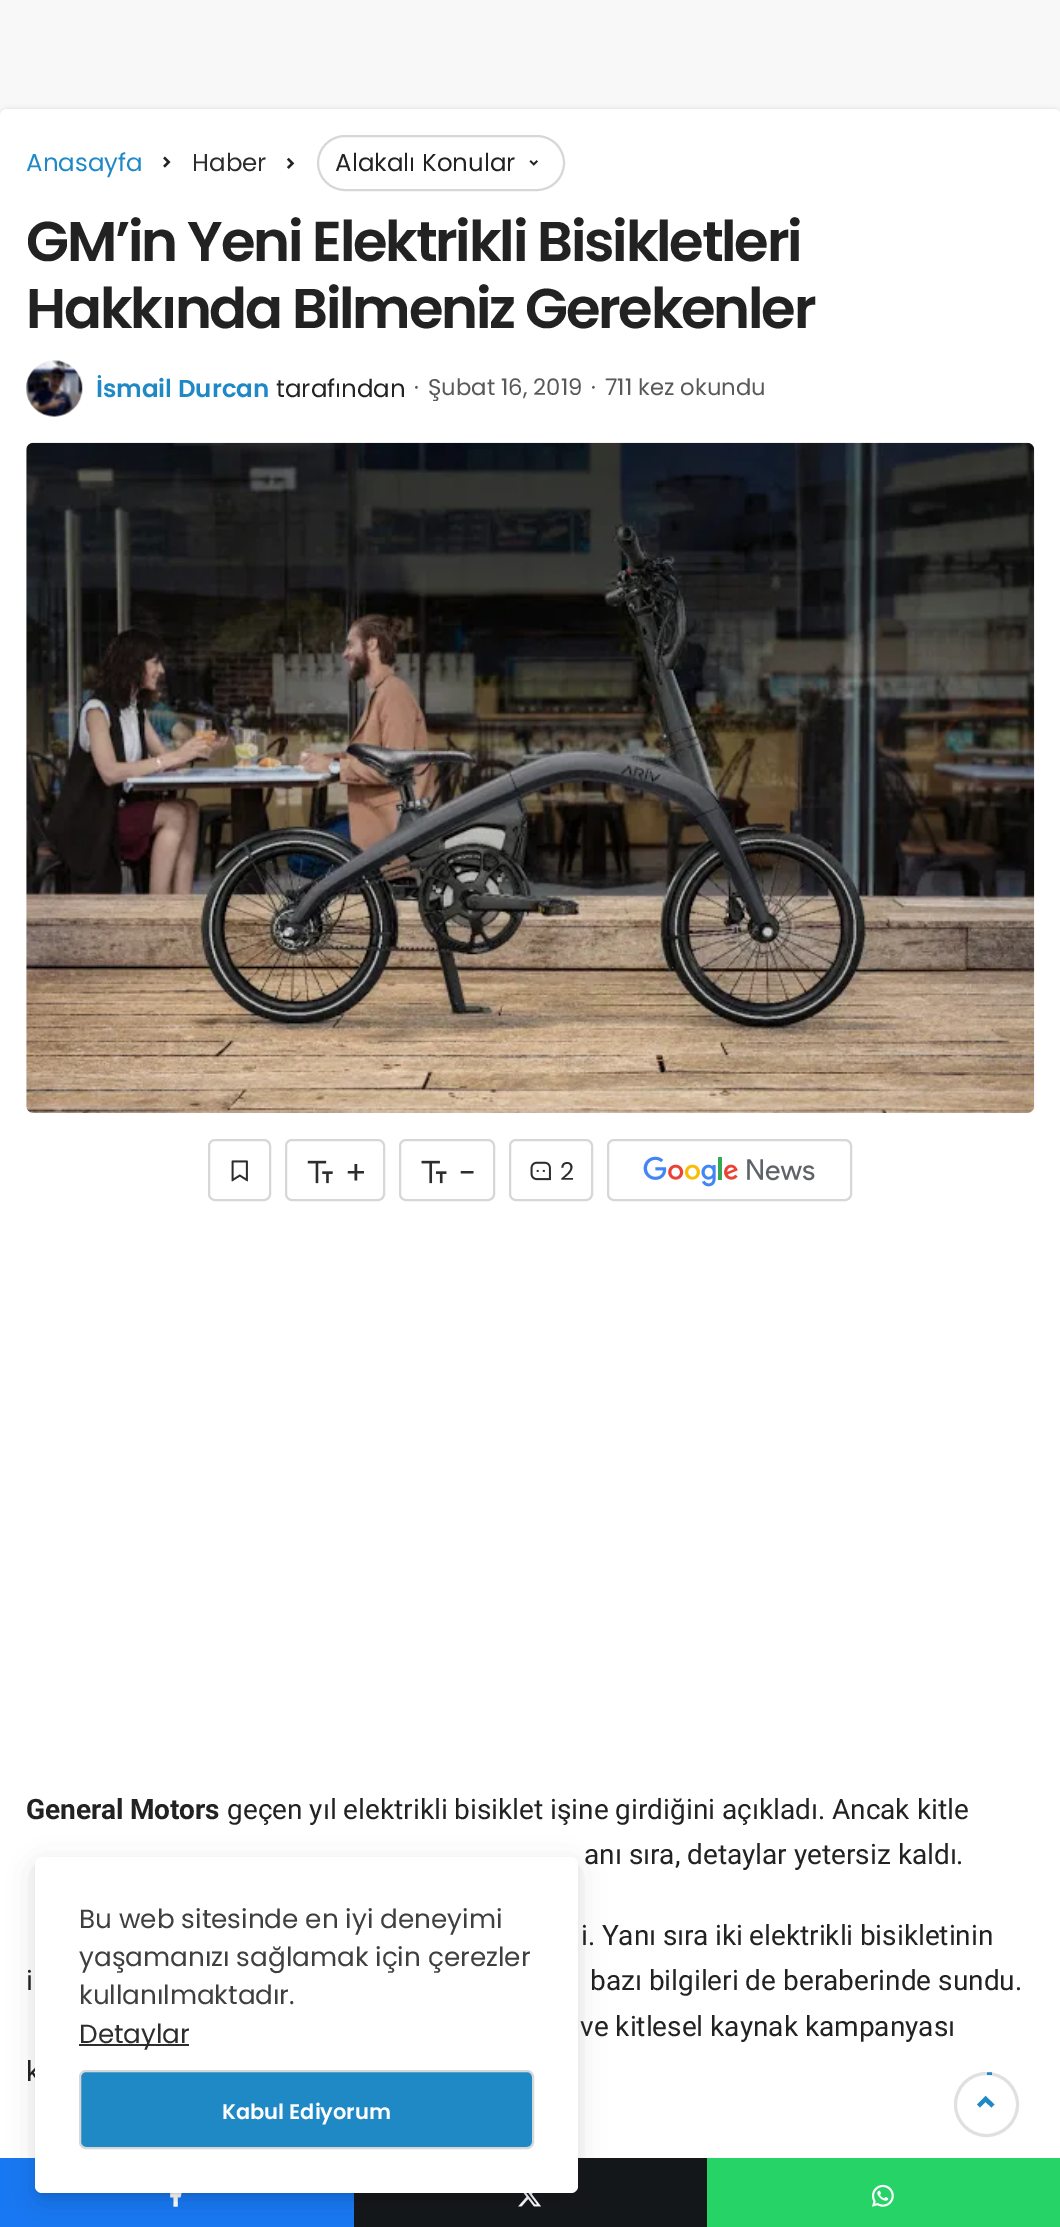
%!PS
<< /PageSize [1060 2227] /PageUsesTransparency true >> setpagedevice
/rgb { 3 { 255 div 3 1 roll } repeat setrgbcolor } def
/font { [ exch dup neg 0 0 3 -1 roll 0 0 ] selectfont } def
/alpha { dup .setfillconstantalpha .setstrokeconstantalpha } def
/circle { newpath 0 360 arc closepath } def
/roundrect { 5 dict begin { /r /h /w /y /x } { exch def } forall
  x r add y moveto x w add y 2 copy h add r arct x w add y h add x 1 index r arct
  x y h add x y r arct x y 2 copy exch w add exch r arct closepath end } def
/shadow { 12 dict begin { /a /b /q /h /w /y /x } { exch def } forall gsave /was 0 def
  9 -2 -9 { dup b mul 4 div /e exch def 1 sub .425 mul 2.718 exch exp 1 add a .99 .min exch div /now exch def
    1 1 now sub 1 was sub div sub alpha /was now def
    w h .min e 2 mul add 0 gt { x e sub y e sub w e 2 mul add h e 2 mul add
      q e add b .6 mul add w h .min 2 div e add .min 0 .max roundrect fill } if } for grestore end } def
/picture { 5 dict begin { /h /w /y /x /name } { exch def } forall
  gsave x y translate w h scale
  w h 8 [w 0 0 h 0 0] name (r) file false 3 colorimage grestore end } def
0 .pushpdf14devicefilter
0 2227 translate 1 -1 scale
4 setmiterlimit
248 248 248 rgb
0 0 1060 2227 rectfill
0 0 0 rgb
0 109 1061 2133 7 2.5 0.1 shadow
255 255 255 rgb
0 109 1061 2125 7 roundrect fill
(img/1.rgb) 163 156 8 12 picture
(img/2.rgb) 286 157 9 12 picture
213 215 218 rgb
2 setlinewidth
318 136 246 54 27 roundrect stroke
(img/3.rgb) 529 160 9 6 picture
(img/4.rgb) 26 360 57 57 picture
(img/5.rgb) 26 442 1009 671 picture
209 1140 61 60 6 roundrect stroke
(img/6.rgb) 231 1160 17 22 picture
286 1140 98 60 6 roundrect stroke
(img/7.rgb) 307 1160 26 24 picture
400 1140 94 60 6 roundrect stroke
(img/8.rgb) 421 1160 26 24 picture
510 1140 82 60 6 roundrect stroke
(img/9.rgb) 530 1161 21 20 picture
(img/10.rgb) 643 1156 172 31 picture
608 1140 243 60 6 roundrect stroke
24 119 242 rgb
0 2158 354 69 rectfill
(img/11.rgb) 170 2193 12 14 picture
20 23 26 rgb
354 2158 353 69 rectfill
(img/12.rgb) 518 2193 23 14 picture
37 211 102 rgb
707 2158 353 69 rectfill
(img/13.rgb) 871 2184 23 23 picture
223 224 225 rgb
3 setlinewidth
986.5 2104.5 31 circle stroke
31 137 198 rgb
2.6 setlinewidth
987 2073.5 moveto 992 2073.5 lineto stroke
985.5 2096 moveto 994.5 2104.5 lineto 991.5 2107.5 lineto 985.5 2102 lineto 980 2107.5 lineto 977 2104.5 lineto closepath fill
0 0 0 rgb
39 1869 535 329 4 15 0.15 shadow
39 1864 535 329 4 4.5 0.15 shadow
/Poppins-Regular 24.5 font
31 137 198 rgb
26 171 moveto (Anasayfa) show
45 45 45 rgb
192 171 moveto (Haber) show
34 34 34 rgb
335 171 moveto (Alakalı Konular) show
/Poppins-SemiBold 56 font
26 261 moveto -2.25 0 (GM’in Yeni Elektrikli Bisikletleri) ashow
26 328 moveto -2.25 0 (Hakkında Bilmeniz Gerekenler) ashow
/Poppins-SemiBold 24.5 font
31 137 198 rgb
96 397 moveto (İsmail Durcan) show
/Poppins-Regular 24.5 font
34 34 34 rgb
276 397 moveto (tarafından) show
/Poppins-Regular 22.75 font
89 89 89 rgb
[
  [(·) 414 395]
  [(Şubat 16, 2019) 428 395]
  [(·) 591 395]
  [(711 kez okundu) 605 395]
] { aload pop moveto show } forall
/Poppins-Regular 32 font
45 45 45 rgb
345 1184 moveto (+) show
459 1184 moveto (-) show
/Poppins-Regular 24.5 font
560 1180 moveto (2) show
/Roboto-Bold 28 font
34 34 34 rgb
26 1819 moveto -1 0 32 (General Motors) widthshow
/Roboto-Regular 28 font
227 1819 moveto (geçen yıl elektrikli bisiklet işine girdiğini açıkladı. Ancak kitle) show
584 1864 moveto (anı sıra, detaylar yetersiz kaldı.) show
581 1945 moveto -0.5 0 32 (i. Yanı sıra iki elektrikli bisikletinin) widthshow
[
  [(i) 26 1990]
  [(bazı bilgileri de beraberinde sundu.) 590 1990]
  [(ve kitlesel kaynak kampanyası) 580 2036]
  [(k) 26 2081]
] { aload pop moveto show } forall
255 255 255 rgb
35 1857 543 336 7 roundrect fill
/Poppins-Regular 26.25 font
63 63 63 rgb
[
  [(Bu web sitesinde en iyi deneyimi) 79 1928]
  [(yaşamanızı sağlamak için çerezler) 79 1966]
  [(kullanılmaktadır.) 79 2004]
] { aload pop moveto show } forall
45 45 45 rgb
79 2044 110 2 rectfill
79 2043 moveto (Detaylar) show
31 137 198 rgb
80 2071 453 77 6 roundrect gsave fill grestore
213 215 218 rgb
2 setlinewidth
stroke
/Poppins-SemiBold 21 font
255 255 255 rgb
222 2119 moveto (Kabul Ediyorum) show
.poppdf14devicefilter showpage
